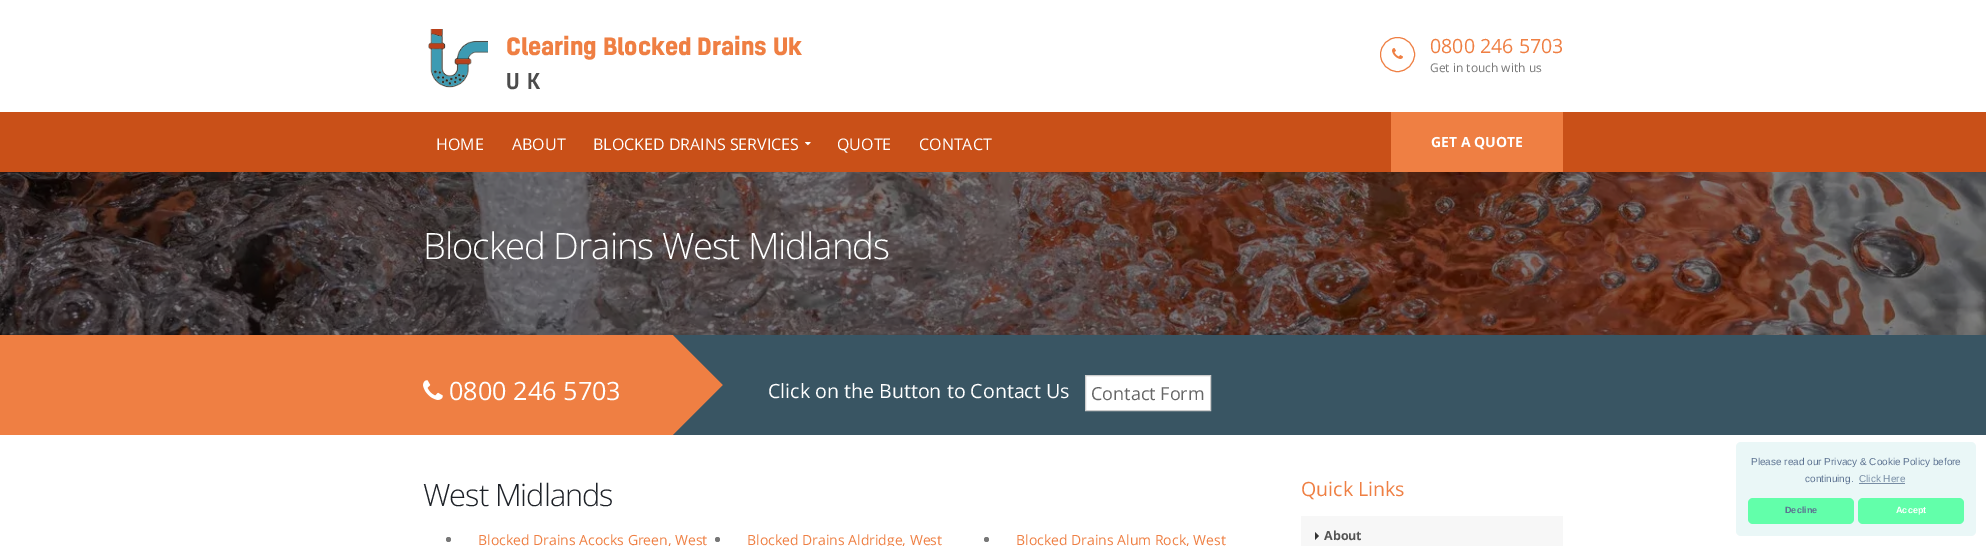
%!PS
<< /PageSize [1986 546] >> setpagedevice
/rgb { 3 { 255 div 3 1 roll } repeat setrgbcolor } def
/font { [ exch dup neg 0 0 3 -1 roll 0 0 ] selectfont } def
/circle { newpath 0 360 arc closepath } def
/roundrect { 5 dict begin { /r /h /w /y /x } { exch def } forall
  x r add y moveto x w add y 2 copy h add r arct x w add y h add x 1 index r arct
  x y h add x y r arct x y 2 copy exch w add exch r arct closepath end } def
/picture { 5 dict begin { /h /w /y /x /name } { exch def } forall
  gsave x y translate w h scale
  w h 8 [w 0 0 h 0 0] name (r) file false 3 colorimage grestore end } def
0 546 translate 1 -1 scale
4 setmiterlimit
255 255 255 rgb
0 0 1986 546 rectfill
(img/1.rgb) 428 29 60 59 picture
239 127 67 rgb
1397.5 54.5 17 circle stroke
(img/2.rgb) 1392 48 11 11 picture
201 80 24 rgb
0 112 1986 60 rectfill
(img/3.rgb) 805 142 6 4 picture
239 127 67 rgb
1391 112 172 60 rectfill
(img/4.rgb) 0 172 1986 163 picture
57 85 99 rgb
723 335 1263 100 rectfill
239 127 67 rgb
0 335 723 100 rectfill
57 85 99 rgb
723 335 moveto 723 385 lineto 673 335 lineto closepath fill
(img/5.rgb) 423 380 20 20 picture
723 435 moveto 673 435 lineto 723 385 lineto closepath fill
255 255 255 rgb
1085.5 375.5 moveto 1210.5 375.5 lineto 1210.5 410.5 lineto 1085.5 410.5 lineto closepath gsave fill grestore
204 204 204 rgb
stroke
119 119 119 rgb
448.5 539.5 2.5 circle fill
717.5 539.5 2.5 circle fill
986.5 539.5 2.5 circle fill
247 247 247 rgb
1301 516 262 30 rectfill
51 51 51 rgb
1315 540 moveto 1315 532 lineto 1319 536 lineto closepath fill
234 247 247 rgb
1736 442 240 94 5 roundrect fill
120 141 165 rgb
1859 483 46 1 rectfill
98 255 170 rgb
1748 498 106 26 5 roundrect fill
1858 498 106 26 5 roundrect fill
/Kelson-Bold 23 font
239 127 67 rgb
506 55 moveto (Clearing Blocked Drains Uk) show
/Kelson-Medium 21 font
76 76 76 rgb
506 89 moveto 8 0 (UK) ashow
/OpenSans-Regular 19.6 font
239 127 67 rgb
1430 53 moveto (0800 246 5703) show
/OpenSans-Regular 12 font
119 119 119 rgb
1430 72 moveto (Get in touch with us) show
/OpenSans-Regular 16 font
255 255 255 rgb
[
  [(HOME) 436 150]
  [(ABOUT) 512 150]
  [(BLOCKED DRAINS SERVICES) 593 150]
  [(QUOTE) 837 150]
  [(CONTACT) 919 150]
] { aload pop moveto show } forall
/OpenSans-Bold 14 font
1431 147 moveto (GET A QUOTE) show
/OpenSans-Light 36.4 font
423 259 moveto -1 0 (Blocked Drains West Midlands) ashow
/OpenSans-Regular 25.25 font
449 400 moveto (0800 246 5703) show
/OpenSans-Regular 19.6 font
768 398 moveto (Click on the Button to Contact Us) show
/OpenSans-Regular 18 font
102 102 102 rgb
1091 400 moveto (Contact Form) show
/OpenSans-Light 30.75 font
29 33 39 rgb
423 506 moveto -1 0 (West Midlands) ashow
/OpenSans-Regular 14 font
239 127 67 rgb
[
  [(Blocked Drains Acocks Green, West) 478 545]
  [(Blocked Drains Aldridge, West) 747 545]
  [(Blocked Drains Alum Rock, West) 1016 545]
] { aload pop moveto show } forall
/OpenSans-Regular 19.6 font
1301 496 moveto (Quick Links) show
/OpenSans-Bold 12.5 font
85 85 85 rgb
1324 540 moveto (About) show
/LiberationSans-Regular 10 font
92 114 145 rgb
1751 465 moveto (Please read our Privacy & Cookie Policy before) show
1805 482 moveto (continuing.) show
120 141 165 rgb
1859 482 moveto (Click Here) show
/LiberationSans-Bold 9 font
92 114 145 rgb
1785 513 moveto (Decline) show
255 255 255 rgb
1896 513 moveto (Accept) show
showpage
